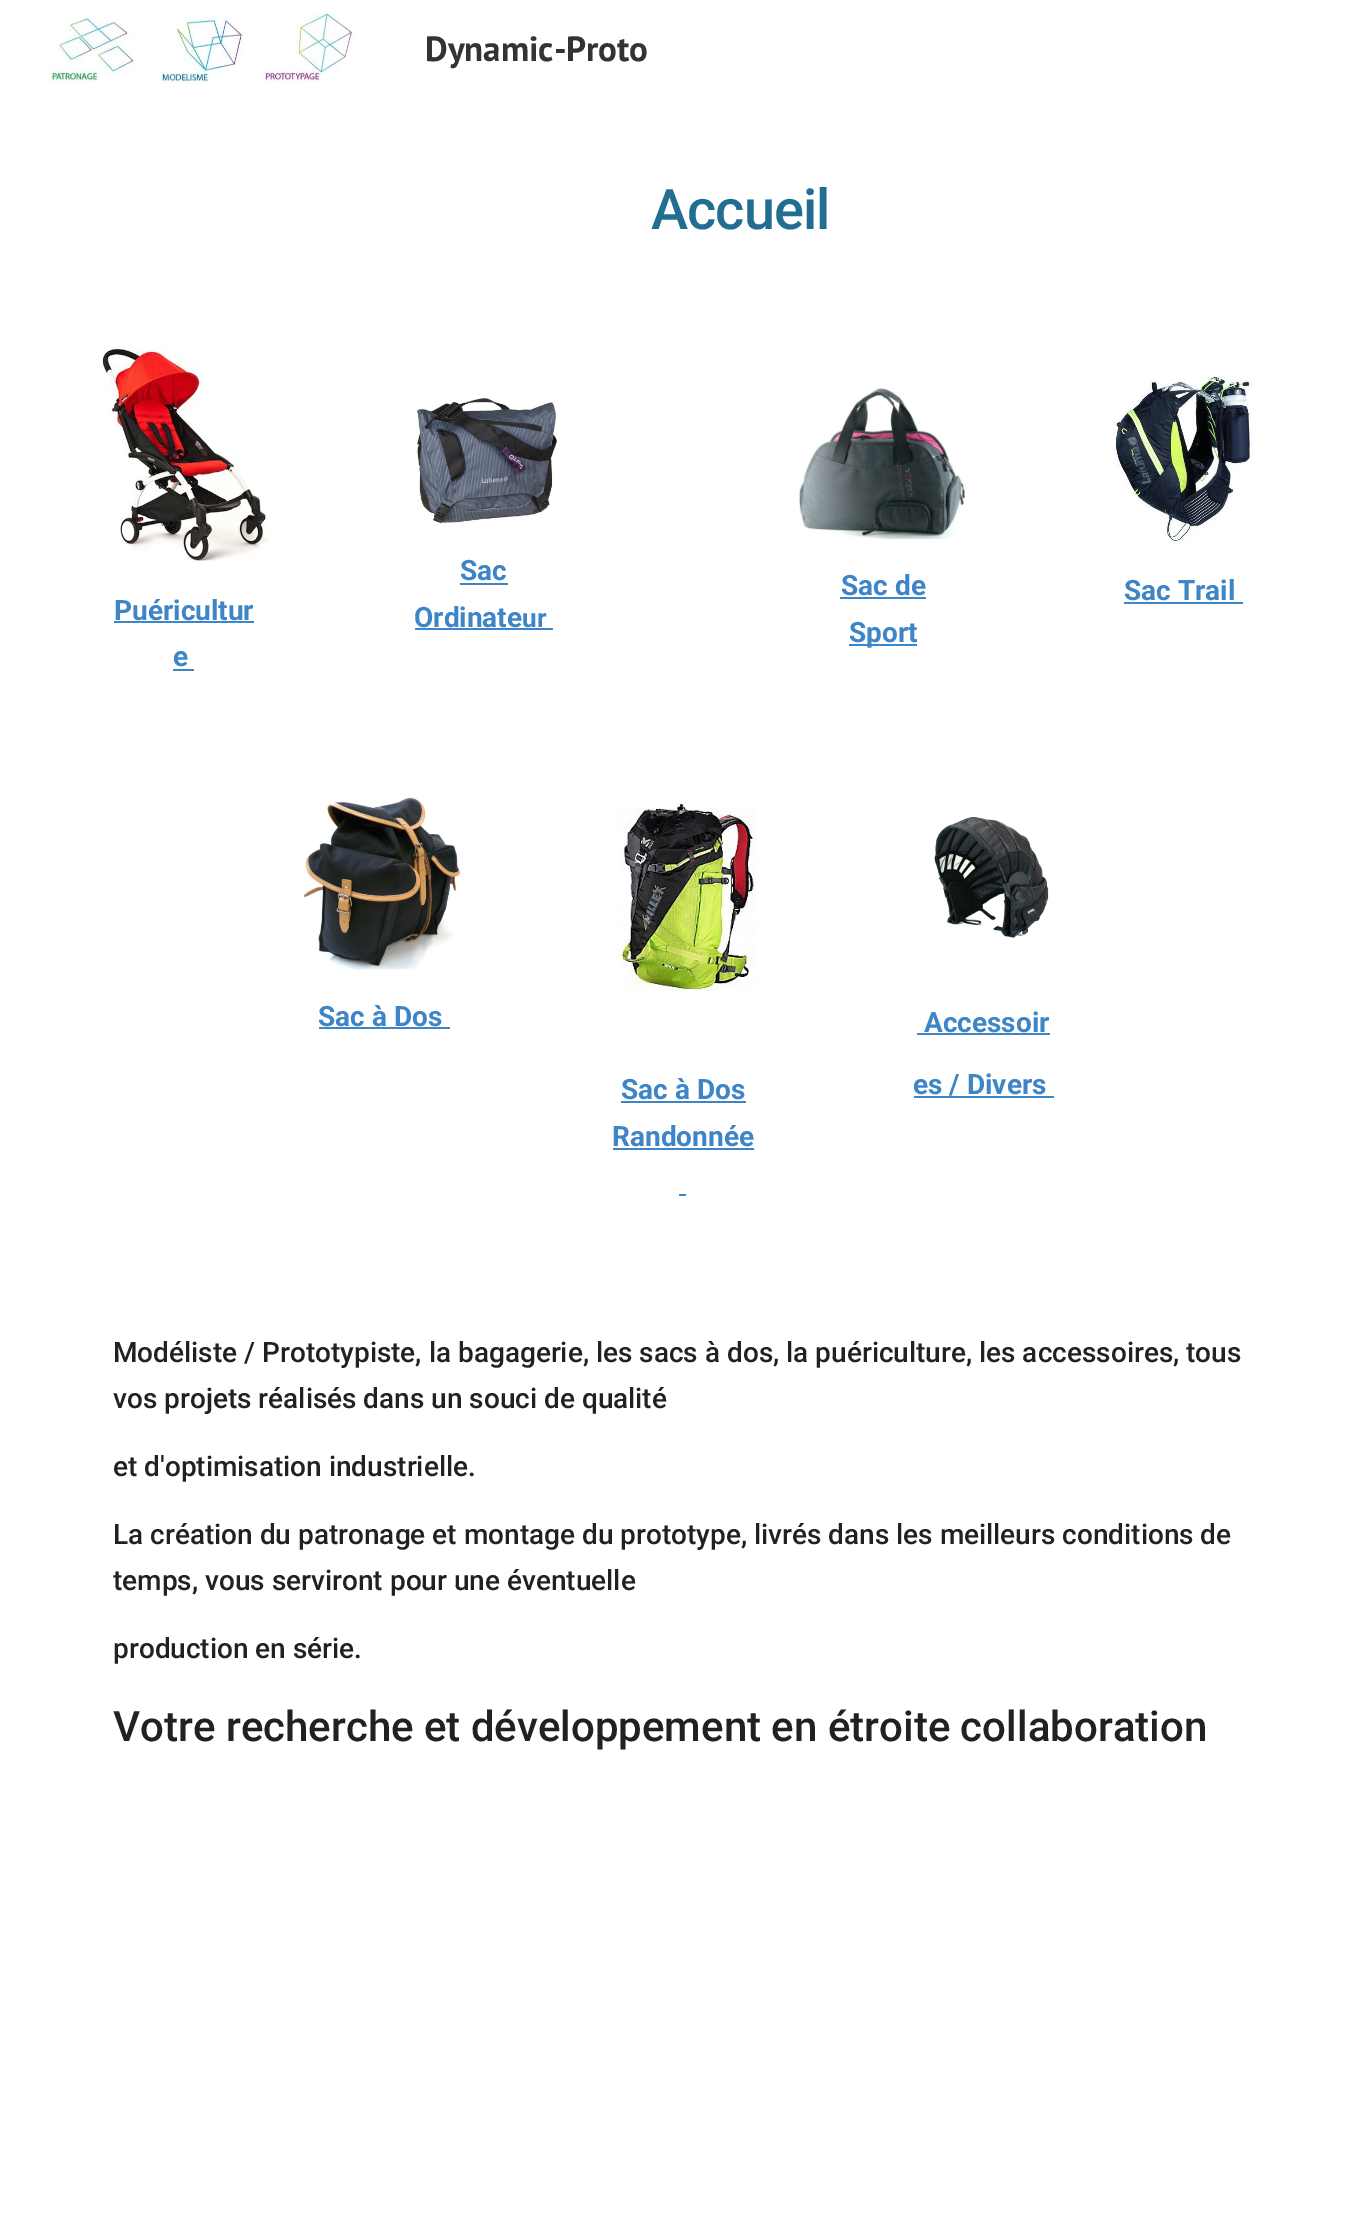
%!PS
<< /PageSize [1366 2225] >> setpagedevice
/rgb { 3 { 255 div 3 1 roll } repeat setrgbcolor } def
/font { [ exch dup neg 0 0 3 -1 roll 0 0 ] selectfont } def
/picture { 5 dict begin { /h /w /y /x /name } { exch def } forall
  gsave x y translate w h scale
  w h 8 [w 0 0 h 0 0] name (r) file false 3 colorimage grestore end } def
0 2225 translate 1 -1 scale
4 setmiterlimit
255 255 255 rgb
0 0 1366 2225 rectfill
(img/1.rgb) 49 14 306 70 picture
(img/2.rgb) 416 398 141 126 picture
61 133 198 rgb
460 583 48 2 rectfill
415 628 138 2 rectfill
(img/3.rgb) 799 388 166 151 picture
840 597 86 2 rectfill
849 644 68 2 rectfill
(img/4.rgb) 1113 375 140 169 picture
1124 602 119 2 rectfill
(img/5.rgb) 100 347 169 216 picture
114 621 140 2 rectfill
173 669 21 2 rectfill
(img/6.rgb) 303 797 159 173 picture
319 1027 131 2 rectfill
(img/7.rgb) 934 817 115 121 picture
917 1033 133 2 rectfill
914 1096 140 2 rectfill
(img/8.rgb) 616 802 140 189 picture
[
  [621 1101 125 2 61 133 198]
  [613 1148 141 2 61 133 198]
  [679 1194 7 2 61 133 198]
] { aload pop rgb rectfill } forall
/PTSans-Bold 35 font
51 51 51 rgb
425 61 moveto (Dynamic-Proto) show
/Roboto-Medium 56 font
34 110 147 rgb
651 229 moveto -1 0 (Accueil) ashow
/Roboto-Bold 28 font
61 133 198 rgb
460 580 moveto (Sac) show
414 627 moveto (Ordinate) show
/Roboto-Bold 26 font
522 627 moveto (ur) show
/Roboto-Bold 28 font
[
  [(Sac de) 841 595]
  [(Sport) 849 642]
  [(Sac Trail) 1124 600]
  [(Puéricultur) 114 620]
  [(e) 173 666]
  [(Sac à Dos) 318 1026]
  [(Accessoir) 924 1032]
  [(es / Divers) 913 1094]
  [(Sac à Dos) 621 1099]
  [(Randonnée) 612 1146]
] { aload pop moveto show } forall
/Roboto-Medium 28 font
33 33 33 rgb
[
  [(Modéliste / Prototypiste, la bagagerie, les sacs à dos, la puériculture, les accessoires, tous) 113 1362]
  [(vos projets réalisés dans un souci de qualité) 113 1408]
  [(et d'optimisation industrielle.) 113 1476]
  [(La création du patronage et montage du prototype, livrés dans les meilleurs conditions de) 113 1544]
  [(temps, vous serviront pour une éventuelle) 113 1590]
  [(production en série.) 113 1658]
] { aload pop moveto show } forall
/Roboto-Medium 42 font
113 1741 moveto (Votre recherche et développement en étroite collaboration) show
showpage
